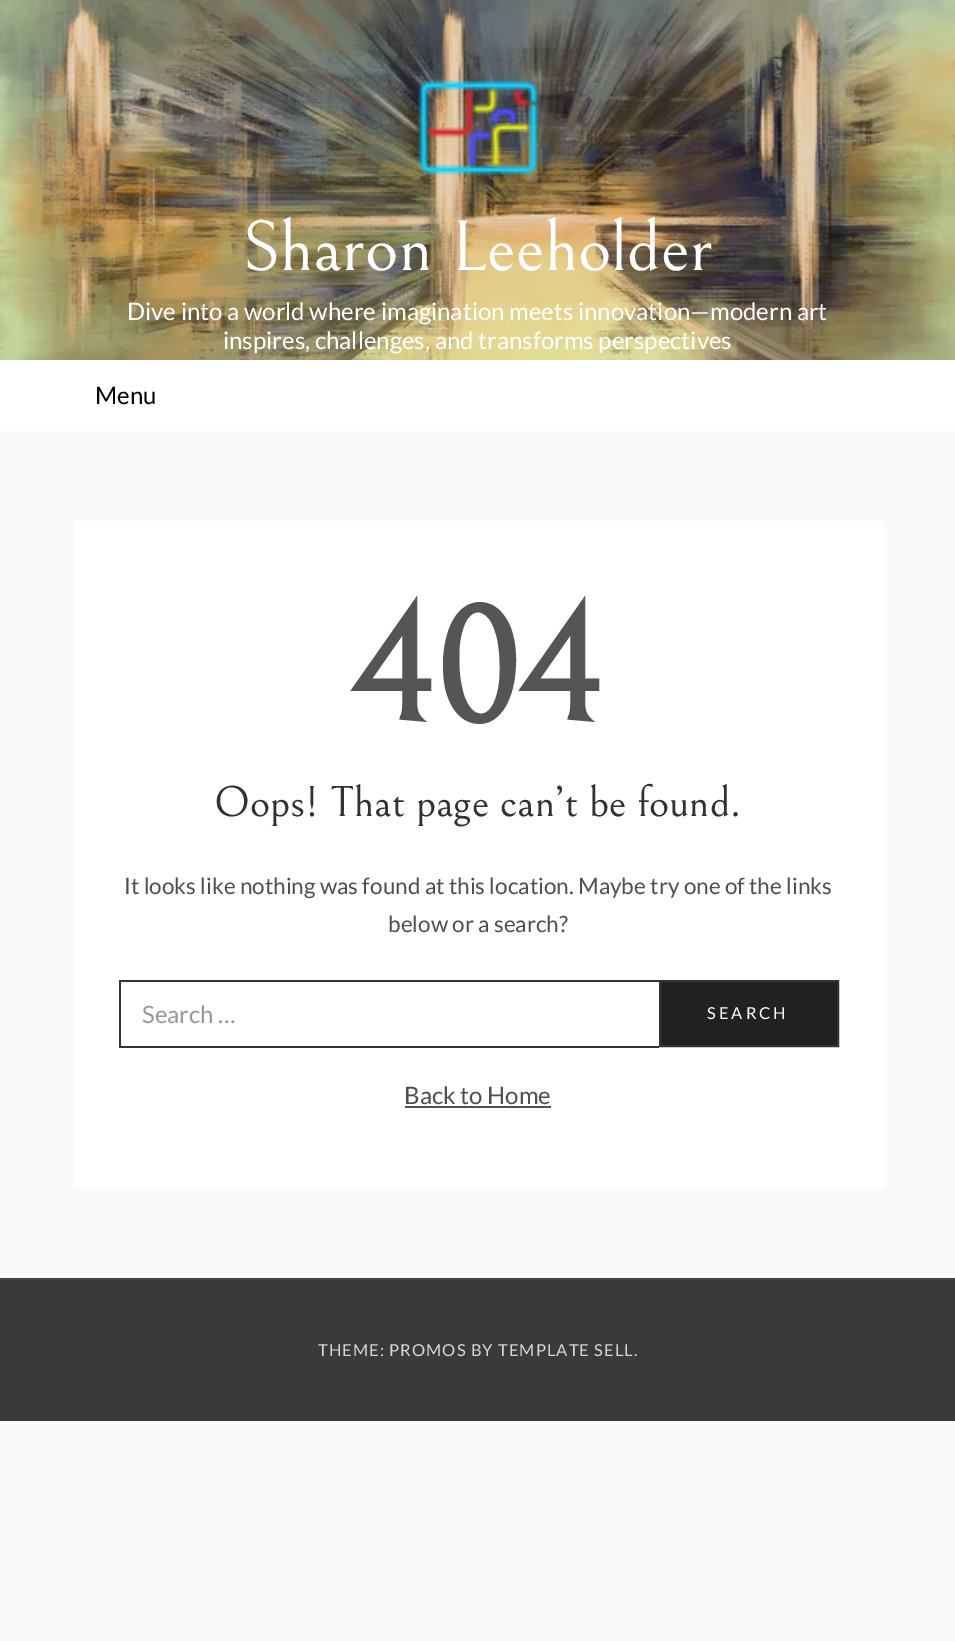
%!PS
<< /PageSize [955 1641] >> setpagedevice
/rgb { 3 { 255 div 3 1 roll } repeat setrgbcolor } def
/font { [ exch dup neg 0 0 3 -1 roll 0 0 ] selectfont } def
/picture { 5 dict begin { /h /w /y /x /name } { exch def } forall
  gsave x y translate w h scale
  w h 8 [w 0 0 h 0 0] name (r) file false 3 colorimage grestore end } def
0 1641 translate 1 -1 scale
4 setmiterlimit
250 250 250 rgb
0 0 955 1641 rectfill
(img/1.rgb) 0 0 955 360 picture
(img/2.rgb) 418 79 121 97 picture
[
  [0 360 955 71 255 255 255]
  [74 521 810 667 255 255 255]
  [119 980 540 2 51 51 51]
  [119 1046 540 2 51 51 51]
  [119 980 2 67 51 51 51]
] { aload pop rgb rectfill } forall
33 33 33 rgb
660 981 moveto 838 981 lineto 838 1046 lineto 660 1046 lineto closepath gsave fill grestore
51 51 51 rgb
2 setlinewidth
stroke
[
  [405 1106 146 2 76 79 83]
  [0 1280 955 141 58 58 58]
  [0 1278 955 2 70 70 70]
] { aload pop rgb rectfill } forall
/Bellefair-Regular 72 font
255 255 255 rgb
242 270 moveto (Sharon Leeholder) show
/Lato-Regular 24 font
127 320 moveto (Dive into a world where imagination meets innovation—modern art) show
223 349 moveto (inspires, challenges, and transforms perspectives) show
0 0 0 rgb
95 404 moveto (Menu) show
/Bellefair-Bold 165 font
85 85 85 rgb
352 722 moveto (404) show
/Bellefair-Regular 43.5 font
47 50 53 rgb
214 816 moveto (Oops! That page can’t be found.) show
/Lato-Regular 22.5 font
76 79 83 rgb
124 894 moveto (It looks like nothing was found at this location. Maybe try one of the links) show
388 932 moveto (below or a search?) show
/Lato-Regular 24 font
153 153 153 rgb
142 1023 moveto (Search …) show
/Lato-Regular 16.5 font
255 255 255 rgb
707 1019 moveto 3 0 (SEARCH) ashow
/Lato-Regular 24 font
76 79 83 rgb
404 1104 moveto (Back to Home) show
/Lato-Regular 16.5 font
216 216 216 rgb
318 1356 moveto 1.05 0 (THEME: PROMOS BY TEMPLATE SELL.) ashow
showpage
